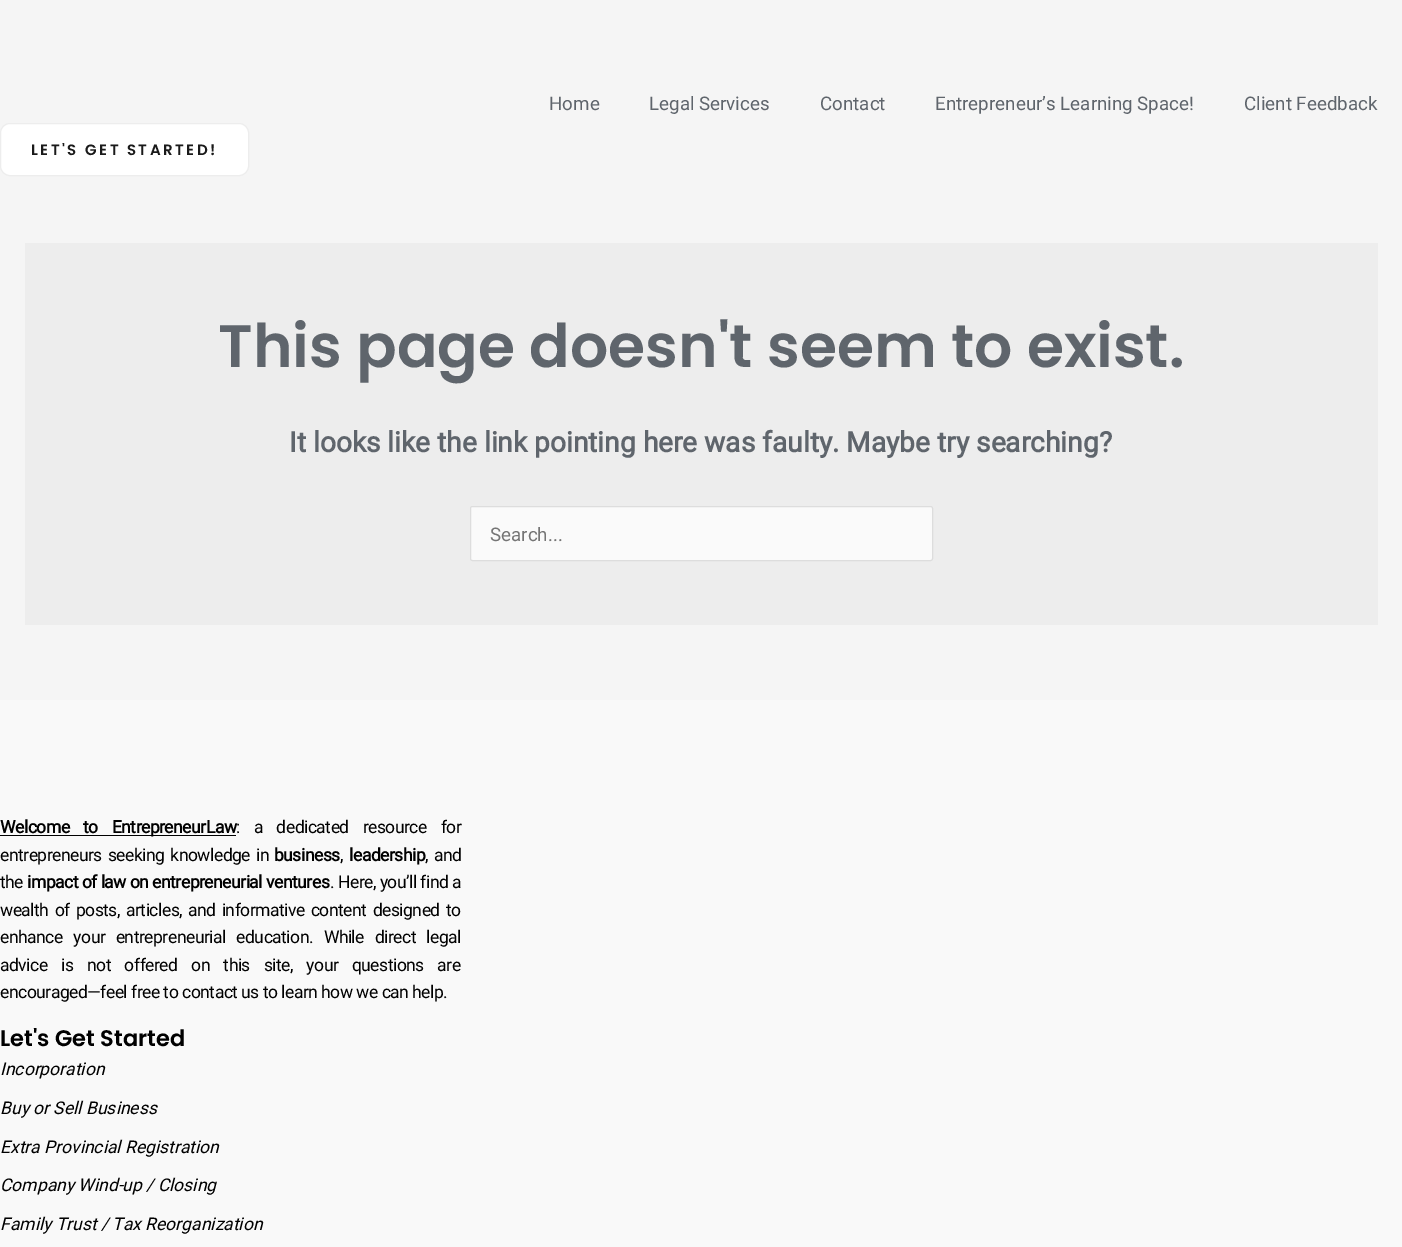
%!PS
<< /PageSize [1402 1247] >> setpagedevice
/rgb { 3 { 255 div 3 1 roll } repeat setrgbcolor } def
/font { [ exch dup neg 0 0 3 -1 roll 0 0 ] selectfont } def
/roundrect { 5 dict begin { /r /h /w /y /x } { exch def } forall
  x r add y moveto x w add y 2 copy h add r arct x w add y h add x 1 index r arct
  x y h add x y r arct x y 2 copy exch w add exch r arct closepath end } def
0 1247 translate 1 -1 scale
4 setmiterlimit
245 245 245 rgb
0 0 1402 1247 rectfill
255 255 255 rgb
0.5 123.5 248 52 9.5 roundrect gsave fill grestore
237 237 237 rgb
stroke
25 243 1353 382 rectfill
250 250 250 rgb
470.5 506.5 462 54 2 roundrect gsave fill grestore
221 221 221 rgb
stroke
249 249 249 rgb
0 700 1402 547 rectfill
0 0 0 rgb
0 835 236 1 rectfill
/Roboto-Regular 18.75 font
95 101 108 rgb
[
  [(Home) 549 110]
  [(Legal Services) 649 110]
  [(Contact) 820 110]
  [(Entrepreneur’s Learning Space!) 935 110]
  [(Client Feedback) 1244 110]
] { aload pop moveto show } forall
/Poppins-SemiBold 15 font
26 26 26 rgb
31 155 moveto 2.5 0 (LET'S GET STARTED!) ashow
/Poppins-SemiBold 60 font
95 101 108 rgb
218 367 moveto (This page doesn't seem to exist.) show
/Roboto-Bold 28.1 font
289 452 moveto (It looks like the link pointing here was faulty. Maybe try searching?) show
/Roboto-Regular 18.75 font
117 117 117 rgb
490 541 moveto (Search...) show
/Roboto-Bold 17.5 font
0 0 0 rgb
0 833 moveto 10 0 32 -0.5 0 (Welcome to EntrepreneurLaw) awidthshow
/Roboto-Regular 17.5 font
236 833 moveto 10 0 32 -0.5 0 (: a dedicated resource for) awidthshow
0 861 moveto 2 0 32 -0.5 0 (entrepreneurs seeking knowledge in) awidthshow
/Roboto-Bold 17.5 font
274 861 moveto -0.5 0 (business) ashow
/Roboto-Regular 17.5 font
340 861 moveto -0.5 0 (,) ashow
/Roboto-Bold 17.5 font
349 861 moveto -0.5 0 (leadership) ashow
/Roboto-Regular 17.5 font
425 861 moveto 2 0 32 -0.5 0 (, and) awidthshow
0 888 moveto -0.5 0 (the) ashow
/Roboto-Bold 17.5 font
27 888 moveto -0.5 0 (impact of law on entrepreneurial ventures) ashow
/Roboto-Regular 17.5 font
330 888 moveto -0.5 0 (. Here, you’ll find a) ashow
0 916 moveto 2.25 0 32 -0.5 0 (wealth of posts, articles, and informative content designed to) awidthshow
0 943 moveto 6.75 0 32 -0.5 0 (enhance your entrepreneurial education. While direct legal) awidthshow
0 971 moveto 9.75 0 32 -0.5 0 (advice is not offered on this site, your questions are) awidthshow
0 998 moveto -0.5 0 (encouraged—feel free to contact us to learn how we can help.) ashow
/Poppins-SemiBold 22.5 font
0 1046 moveto (Let's Get Started) show
/Roboto-Italic 17.5 font
[
  [(Incorporation) 0 1075]
  [(Buy or Sell Business) 0 1114]
  [(Extra Provincial Registration) 0 1153]
  [(Company Wind-up / Closing) 0 1191]
  [(Family Trust / Tax Reorganization) 0 1230]
] { aload pop moveto show } forall
showpage
